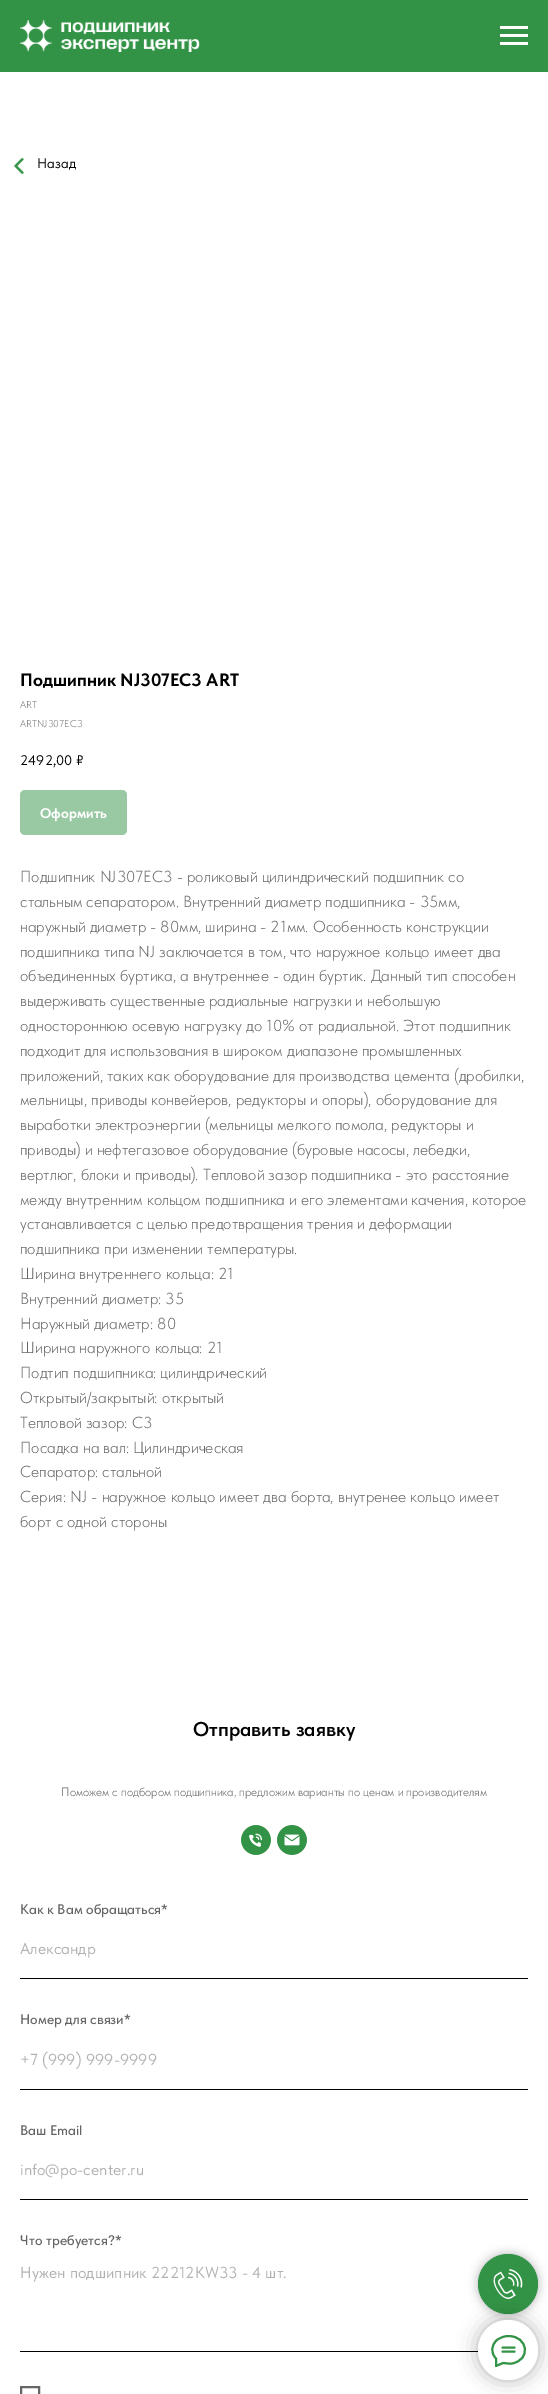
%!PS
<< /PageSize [548 2394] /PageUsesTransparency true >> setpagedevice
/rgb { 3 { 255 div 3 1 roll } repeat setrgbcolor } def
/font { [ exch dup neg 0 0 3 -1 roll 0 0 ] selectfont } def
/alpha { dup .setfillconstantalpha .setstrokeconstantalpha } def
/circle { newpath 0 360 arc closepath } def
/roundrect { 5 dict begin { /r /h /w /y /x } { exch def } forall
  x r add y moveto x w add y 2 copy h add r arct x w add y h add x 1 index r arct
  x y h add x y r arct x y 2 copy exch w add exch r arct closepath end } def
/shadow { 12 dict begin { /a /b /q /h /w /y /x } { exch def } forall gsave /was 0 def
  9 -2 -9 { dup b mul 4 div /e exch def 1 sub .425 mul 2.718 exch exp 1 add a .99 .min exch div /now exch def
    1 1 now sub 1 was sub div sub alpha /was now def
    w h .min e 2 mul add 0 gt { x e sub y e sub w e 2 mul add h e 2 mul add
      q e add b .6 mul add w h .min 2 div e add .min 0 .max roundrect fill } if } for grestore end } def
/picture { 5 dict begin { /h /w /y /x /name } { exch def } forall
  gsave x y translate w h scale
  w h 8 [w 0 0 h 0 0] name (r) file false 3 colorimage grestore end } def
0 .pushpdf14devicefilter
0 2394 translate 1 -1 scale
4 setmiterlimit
255 255 255 rgb
0 0 548 2394 rectfill
50 147 70 rgb
0 0 548 72 rectfill
(img/1.rgb) 20 20 180 32 picture
[
  [500 26 28 3 255 255 255]
  [500 34 28 3 255 255 255]
  [500 42 28 3 255 255 255]
] { aload pop rgb rectfill } forall
(img/2.rgb) 13 158 11 16 picture
153 201 163 rgb
20 790 107 45 5 roundrect fill
(img/3.rgb) 241 1825 30 30 picture
(img/4.rgb) 277 1825 30 30 picture
[
  [20 1978 508 1 0 0 0]
  [20 2089 508 1 0 0 0]
  [20 2199 508 1 0 0 0]
  [20 2351 459 1 0 0 0]
] { aload pop rgb rectfill } forall
102 102 102 rgb
2 setlinewidth
21 2387 18 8 rectstroke
0 0 0 rgb
478 2254 60 60 30 5 0.3 shadow
50 147 70 rgb
508 2284 30 circle fill
(img/5.rgb) 493 2269 30 30 picture
0 0 0 rgb
478 2320 60 60 30 10 0.3 shadow
255 255 255 rgb
508 2350 30 circle fill
50 147 70 rgb
1 setlinecap
1 setlinejoin
502.5 2347.5 moveto 514.5 2347.5 lineto 502.5 2351.5 moveto 514.5 2351.5 lineto 496 2358.5 moveto 490.5 2353 491 2345 497 2340 curveto 500 2337.5 504.5 2336 508.5 2336 curveto 528 2336 531.5 2360 512 2363.5 curveto 508 2364 506.5 2363 503 2363 curveto 496 2366 lineto 496 2359 lineto closepath stroke
/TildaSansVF-Regular 14 font
0 0 0 rgb
37 168 moveto (Назад) show
/TildaSansVF-Bold 18 font
20 686 moveto (Подшипник NJ307EC3 ART) show
/TildaSansVF-Light 10 font
119 119 119 rgb
20 708 moveto (ART) show
20 727 moveto (ARTNJ307EC3) show
/TildaSansVF-Regular 14 font
0 0 0 rgb
20 765 moveto (2492,00 ₽) show
/TildaSansVF-Bold 14 font
255 255 255 rgb
40 818 moveto (Оформить) show
/TildaSansVF-Light 16 font
100 100 100 rgb
[
  [(Подшипник NJ307EC3 - роликовый цилиндрический подшипник со) 20 882]
  [(стальным сепаратором. Внутренний диаметр подшипника - 35мм,) 20 907]
  [(наружный диаметр - 80мм, ширина - 21мм. Особенность конструкции) 20 932]
  [(подшипника типа NJ заключается в том, что наружное кольцо имеет два) 20 957]
  [(объединенных буртика, а внутреннее - один буртик. Данный тип способен) 20 981]
  [(выдерживать существенные радиальные нагрузки и небольшую) 20 1006]
  [(одностороннюю осевую нагрузку до 10% от радиальной. Этот подшипник) 20 1031]
  [(подходит для использования в широком диапазоне промышленных) 20 1056]
  [(приложений, таких как оборудование для производства цемента \(дробилки,) 20 1081]
  [(мельницы, приводы конвейеров, редукторы и опоры\), оборудование для) 20 1105]
  [(выработки электроэнергии \(мельницы мелкого помола, редукторы и) 20 1130]
  [(приводы\) и нефтегазовое оборудование \(буровые насосы, лебедки,) 20 1155]
  [(вертлюг, блоки и приводы\). Тепловой зазор подшипника - это расстояние) 20 1180]
  [(между внутренним кольцом подшипника и его элементами качения, которое) 20 1205]
  [(устанавливается с целью предотвращения трения и деформации) 20 1229]
  [(подшипника при изменении температуры.) 20 1254]
  [(Ширина внутреннего кольца: 21) 20 1279]
  [(Внутренний диаметр: 35) 20 1304]
  [(Наружный диаметр: 80) 20 1329]
  [(Ширина наружного кольца: 21) 20 1353]
  [(Подтип подшипника: цилиндрический) 20 1378]
  [(Открытый/закрытый: открытый) 20 1403]
  [(Тепловой зазор: C3) 20 1428]
  [(Посадка на вал: Цилиндрическая) 20 1453]
  [(Сепаратор: стальной) 20 1477]
  [(Серия: NJ - наружное кольцо имеет два борта, внутренее кольцо имеет) 20 1502]
  [(борт с одной стороны) 20 1527]
] { aload pop moveto show } forall
/TildaSansVF-SemiBold 20 font
0 0 0 rgb
193 1736 moveto (Отправить заявку) show
/TildaSansVF-Light 12 font
100 100 100 rgb
61 1796 moveto (Поможем с подбором подшипника, предложим варианты по ценам и производителям) show
/TildaSansVF-Medium 14 font
20 1914 moveto (Как к Вам обращаться*) show
/TildaSansVF-Regular 16 font
178 178 178 rgb
20 1954 moveto (Александр) show
/TildaSansVF-Medium 14 font
100 100 100 rgb
20 2024 moveto (Номер для связи*) show
/TildaSansVF-Regular 16 font
178 178 178 rgb
20 2065 moveto (+7 \(999\) 999-9999) show
/TildaSansVF-Medium 14 font
100 100 100 rgb
20 2135 moveto (Ваш Email) show
/TildaSansVF-Regular 16 font
178 178 178 rgb
20 2175 moveto (info@po-center.ru) show
/TildaSansVF-Medium 14 font
100 100 100 rgb
20 2245 moveto (Что требуется?*) show
/TildaSansVF-Regular 16 font
178 178 178 rgb
20 2278 moveto (Нужен подшипник 22212KW33 - 4 шт.) show
.poppdf14devicefilter showpage
